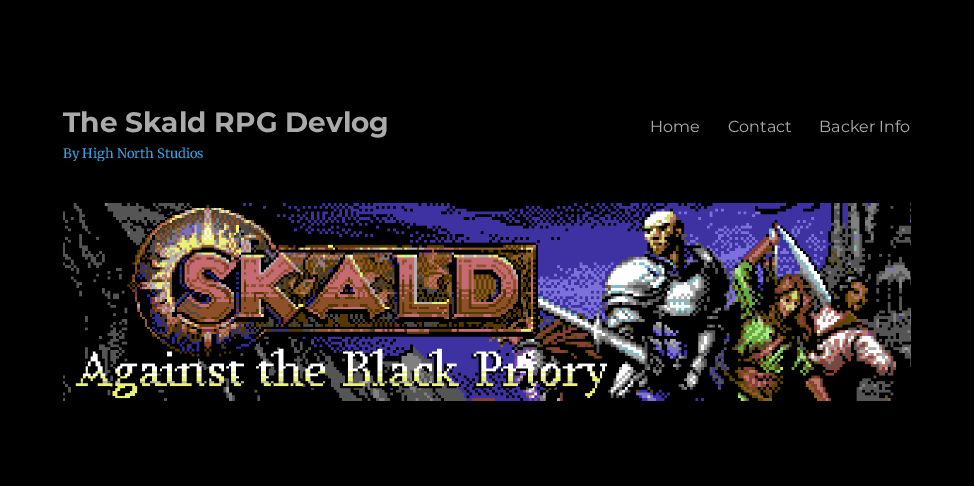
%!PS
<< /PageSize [974 486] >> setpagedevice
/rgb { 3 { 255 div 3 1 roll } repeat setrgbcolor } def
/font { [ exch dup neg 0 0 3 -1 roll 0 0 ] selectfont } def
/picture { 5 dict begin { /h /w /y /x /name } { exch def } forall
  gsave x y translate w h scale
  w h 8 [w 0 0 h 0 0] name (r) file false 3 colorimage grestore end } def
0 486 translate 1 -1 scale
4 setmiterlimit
0 0 0 rgb
0 0 974 486 rectfill
(img/1.rgb) 63 203 848 198 picture
/Montserrat-Bold 28 font
170 170 170 rgb
63 132 moveto (The Skald RPG Devlog) show
gsave
63 105 326 56 rectclip
/Merriweather-Regular 13 font
52 162 226 rgb
63 158 moveto (By High North Studios) show
grestore
/Montserrat-Regular 16 font
[
  [(Home) 650 132]
  [(Contact) 728 132]
  [(Backer Info) 819 132]
] { aload pop moveto show } forall
showpage
